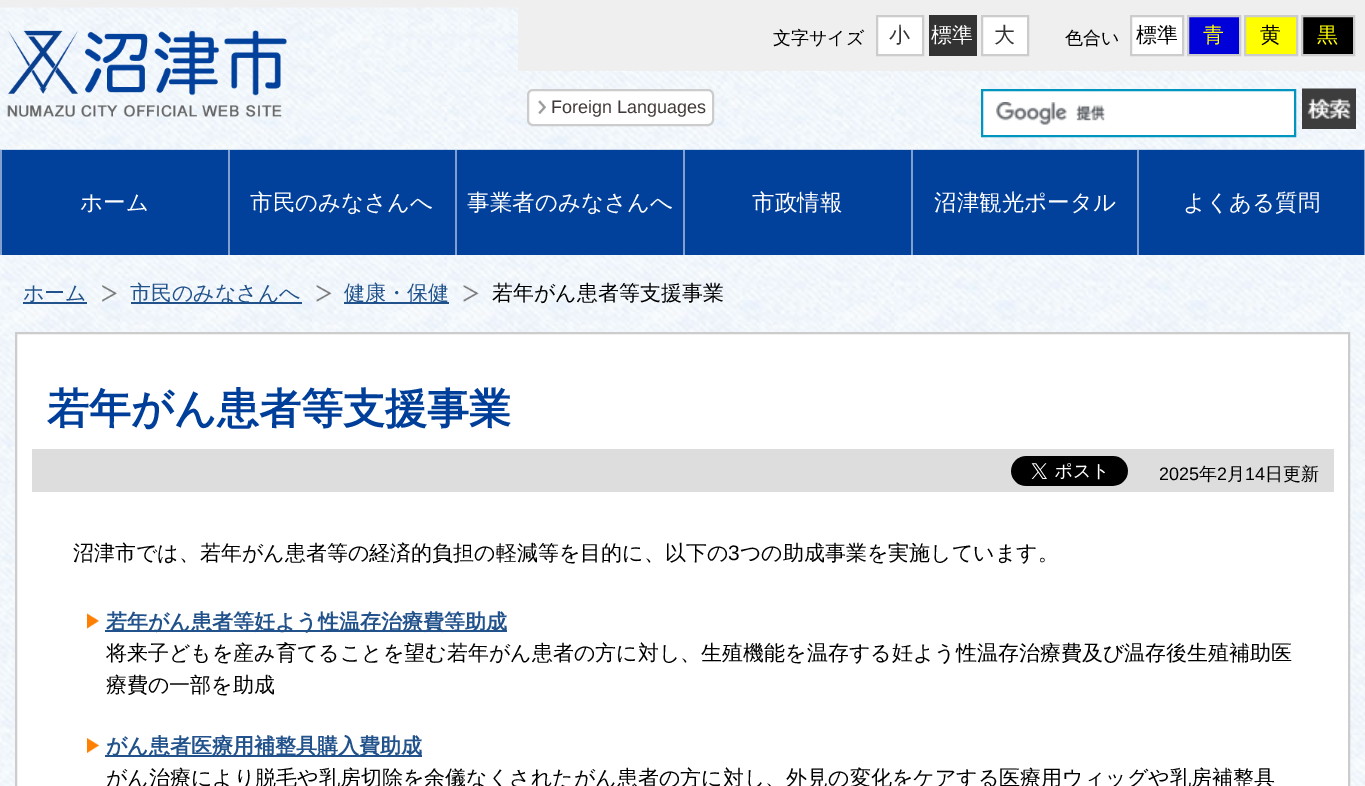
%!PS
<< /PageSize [1365 786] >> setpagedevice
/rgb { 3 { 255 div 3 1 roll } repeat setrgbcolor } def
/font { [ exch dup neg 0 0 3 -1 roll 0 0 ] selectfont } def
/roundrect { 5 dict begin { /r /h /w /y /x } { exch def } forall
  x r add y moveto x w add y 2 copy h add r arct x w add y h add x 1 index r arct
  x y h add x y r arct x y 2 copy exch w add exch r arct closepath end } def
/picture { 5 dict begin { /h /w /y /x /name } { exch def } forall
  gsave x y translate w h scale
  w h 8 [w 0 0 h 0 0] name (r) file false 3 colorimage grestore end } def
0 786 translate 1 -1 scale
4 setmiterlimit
255 255 255 rgb
0 0 1365 786 rectfill
(img/1.rgb) 0 7 1365 779 picture
(img/2.rgb) 0 0 1365 150 picture
2 65 155 rgb
2 150 1362 105 rectfill
239 239 239 rgb
518 7 847 64 rectfill
255 255 255 rgb
877 16 moveto 923 16 lineto 923 55 lineto 877 55 lineto closepath gsave fill grestore
204 204 204 rgb
2 setlinewidth
stroke
51 51 51 rgb
929 15 48 41 rectfill
255 255 255 rgb
982 16 moveto 1028 16 lineto 1028 55 lineto 982 55 lineto closepath gsave fill grestore
204 204 204 rgb
stroke
255 255 255 rgb
1131 16 moveto 1183 16 lineto 1183 55 lineto 1131 55 lineto closepath gsave fill grestore
204 204 204 rgb
stroke
0 0 217 rgb
1188 16 moveto 1240 16 lineto 1240 55 lineto 1188 55 lineto closepath gsave fill grestore
204 204 204 rgb
stroke
255 255 0 rgb
1245 16 moveto 1297 16 lineto 1297 55 lineto 1245 55 lineto closepath gsave fill grestore
204 204 204 rgb
stroke
0 0 0 rgb
1302 16 moveto 1354 16 lineto 1354 55 lineto 1302 55 lineto closepath gsave fill grestore
204 204 204 rgb
stroke
255 255 255 rgb
527 89 187 37 6 roundrect fill
(img/3.rgb) 538 100 8 14 picture
204 204 204 rgb
528 90 185 35 5 roundrect stroke
255 255 255 rgb
983 91 311 44 rectfill
(img/4.rgb) 996 102 109 23 picture
0 149 191 rgb
982 90 313 46 rectstroke
(img/5.rgb) 1302 88 54 41 picture
[
  [0 150 2 105 129 160 205]
  [228 150 2 105 129 160 205]
  [455 150 2 105 129 160 205]
  [683 150 2 105 129 160 205]
  [911 150 2 105 129 160 205]
  [1364 150 1 105 129 160 205]
  [1137 150 2 105 129 160 205]
] { aload pop rgb rectfill } forall
(img/6.rgb) 7 30 280 87 picture
33 82 139 rgb
23 302 64 2 rectfill
(img/7.rgb) 102 285 15 17 picture
131 302 171 2 rectfill
(img/8.rgb) 316 285 16 17 picture
344 302 105 2 rectfill
(img/9.rgb) 463 285 16 17 picture
255 255 255 rgb
16 333 moveto 1349 333 lineto 1349 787 lineto 16 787 lineto closepath gsave fill grestore
204 204 204 rgb
stroke
221 221 221 rgb
32 449 1302 43 rectfill
(img/10.rgb) 1011 456 117 30 picture
(img/11.rgb) 87 613 12 16 picture
33 82 139 rgb
105 630 402 2 rectfill
(img/12.rgb) 87 738 12 15 picture
105 755 317 2 rectfill
/WenQuanYiZenHei-Medium 18 font
0 0 0 rgb
773 44 moveto (文字サイズ) show
/WenQuanYiZenHei-Medium 21 font
51 51 51 rgb
889 42 moveto (小) show
255 255 255 rgb
931 42 moveto (標準) show
51 51 51 rgb
994 42 moveto (大) show
/WenQuanYiZenHei-Medium 18 font
0 0 0 rgb
1065 44 moveto (色合い) show
/WenQuanYiZenHei-Medium 21 font
1136 42 moveto (標準) show
255 255 0 rgb
1203 42 moveto (青) show
0 0 0 rgb
1260 42 moveto (黄) show
255 255 0 rgb
1317 42 moveto (黒) show
/LiberationSans-Regular 18 font
66 58 56 rgb
551 113 moveto (Foreign Languages) show
/WenQuanYiZenHei-Medium 22.5 font
255 255 255 rgb
[
  [(ホーム) 80 210]
  [(市民のみなさんへ) 250 210]
  [(事業者のみなさんへ) 467 210]
  [(市政情報) 752 210]
  [(沼津観光ポータル) 934 210]
  [(よくある質問) 1183 210]
] { aload pop moveto show } forall
/WenQuanYiZenHei-Medium 21 font
33 82 139 rgb
[
  [(ホーム) 23 300]
  [(市民のみなさんへ) 130 300]
  [(健康・保健) 344 300]
] { aload pop moveto show } forall
0 0 0 rgb
492 300 moveto (若年がん患者等支援事業) show
/WenQuanYiZenHei-Bold 42 font
0 63 153 rgb
47 423 moveto (若年がん患者等支援事業) show
/LiberationSans-Regular 18 font
0 0 0 rgb
1159 480 moveto (2025) show
/WenQuanYiZenHei-Medium 18 font
1199 480 moveto (年) show
/LiberationSans-Regular 18 font
1217 480 moveto (2) show
/WenQuanYiZenHei-Medium 18 font
1227 480 moveto (月) show
/LiberationSans-Regular 18 font
1245 480 moveto (14) show
/WenQuanYiZenHei-Medium 18 font
1265 480 moveto (日更新) show
/WenQuanYiZenHei-Medium 21 font
73 560 moveto (沼津市では、若年がん患者等の経済的負担の軽減等を目的に、以下の) show
/LiberationSans-Regular 21 font
728 560 moveto (3) show
/WenQuanYiZenHei-Medium 21 font
740 560 moveto (つの助成事業を実施しています。) show
/WenQuanYiZenHei-Bold 21 font
33 82 139 rgb
106 629 moveto (若年がん患者等妊よう性温存治療費等助成) show
/WenQuanYiZenHei-Medium 21 font
0 0 0 rgb
106 660 moveto (将来子どもを産み育てることを望む若年がん患者の方に対し、生殖機能を温存する妊よう性温存治療費及び温存後生殖補助医) show
106 692 moveto (療費の一部を助成) show
/WenQuanYiZenHei-Bold 21 font
33 82 139 rgb
106 753 moveto (がん患者医療用補整具購入費助成) show
/WenQuanYiZenHei-Medium 21 font
0 0 0 rgb
106 785 moveto (がん治療により脱毛や乳房切除を余儀なくされたがん患者の方に対し、外見の変化をケアする医療用ウィッグや乳房補整具) show
showpage
